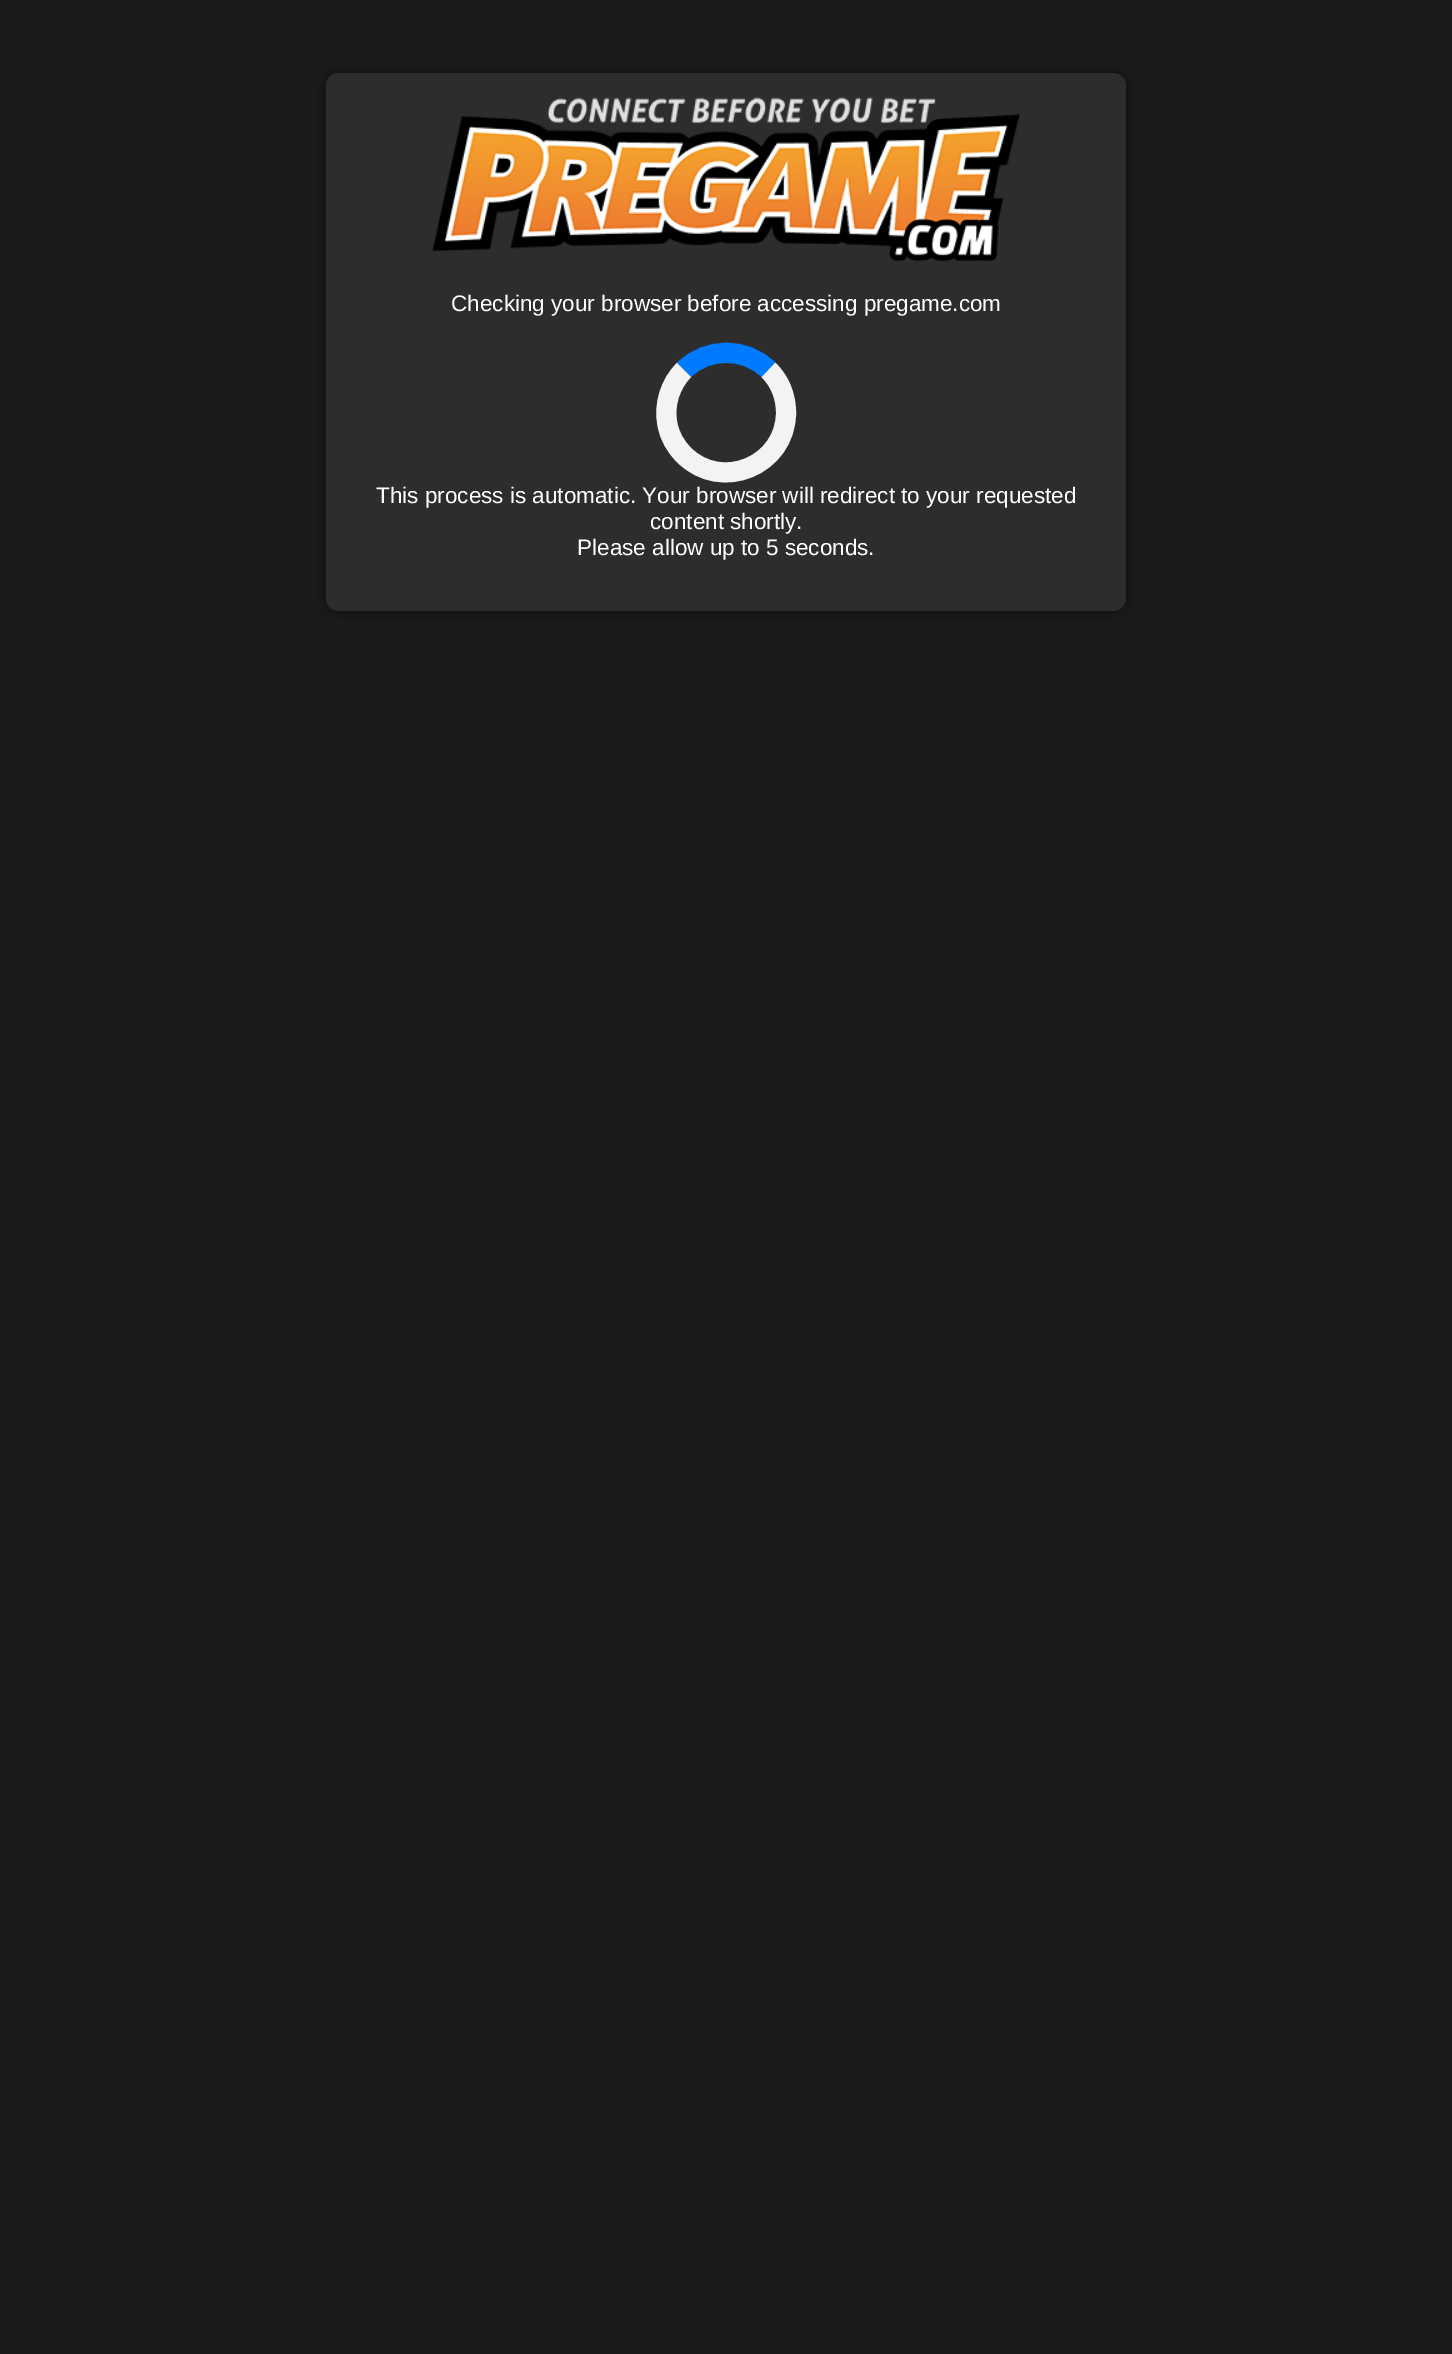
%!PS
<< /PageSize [1452 2354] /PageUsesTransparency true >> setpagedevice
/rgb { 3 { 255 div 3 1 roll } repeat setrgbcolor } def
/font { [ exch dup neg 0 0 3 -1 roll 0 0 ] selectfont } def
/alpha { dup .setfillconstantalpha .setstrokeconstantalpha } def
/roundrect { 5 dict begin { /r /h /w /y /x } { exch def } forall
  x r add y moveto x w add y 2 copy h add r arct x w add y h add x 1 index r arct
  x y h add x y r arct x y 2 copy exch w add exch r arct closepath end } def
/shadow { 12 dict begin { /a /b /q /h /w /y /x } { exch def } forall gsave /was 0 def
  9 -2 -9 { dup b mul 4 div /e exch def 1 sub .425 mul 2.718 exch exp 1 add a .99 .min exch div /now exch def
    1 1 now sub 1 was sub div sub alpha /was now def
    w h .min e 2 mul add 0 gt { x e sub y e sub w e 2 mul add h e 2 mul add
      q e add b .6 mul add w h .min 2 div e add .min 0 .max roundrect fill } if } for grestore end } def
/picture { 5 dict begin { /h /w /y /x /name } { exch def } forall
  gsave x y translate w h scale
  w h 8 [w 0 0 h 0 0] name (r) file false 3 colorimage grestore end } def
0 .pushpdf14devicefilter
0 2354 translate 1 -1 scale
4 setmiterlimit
26 26 26 rgb
0 0 1452 2354 rectfill
0 0 0 rgb
326 73 800 538 13 6 0.5 shadow
45 45 45 rgb
326 73 800 538 13 roundrect fill
(img/1.rgb) 432 97 588 165 picture
0 123 255 rgb
20 setlinewidth
684 370 moveto 707 347 745.5 347 768.5 370 curveto stroke
243 243 243 rgb
768.5 370 moveto 780 381 786 396.5 786 412.5 curveto 786 465.5 721.5 492.5 684 455 curveto 675.5 446.5 669.5 436 667.5 424.5 curveto 663.5 405 670 384 684 370 curveto stroke
/LiberationSans-Regular 22.5 font
255 255 255 rgb
[
  [(Checking your browser before accessing pregame.com) 451 311]
  [(This process is automatic. Your browser will redirect to your requested) 376 503]
  [(content shortly.) 650 529]
  [(Please allow up to 5 seconds.) 577 555]
] { aload pop moveto show } forall
.poppdf14devicefilter showpage
